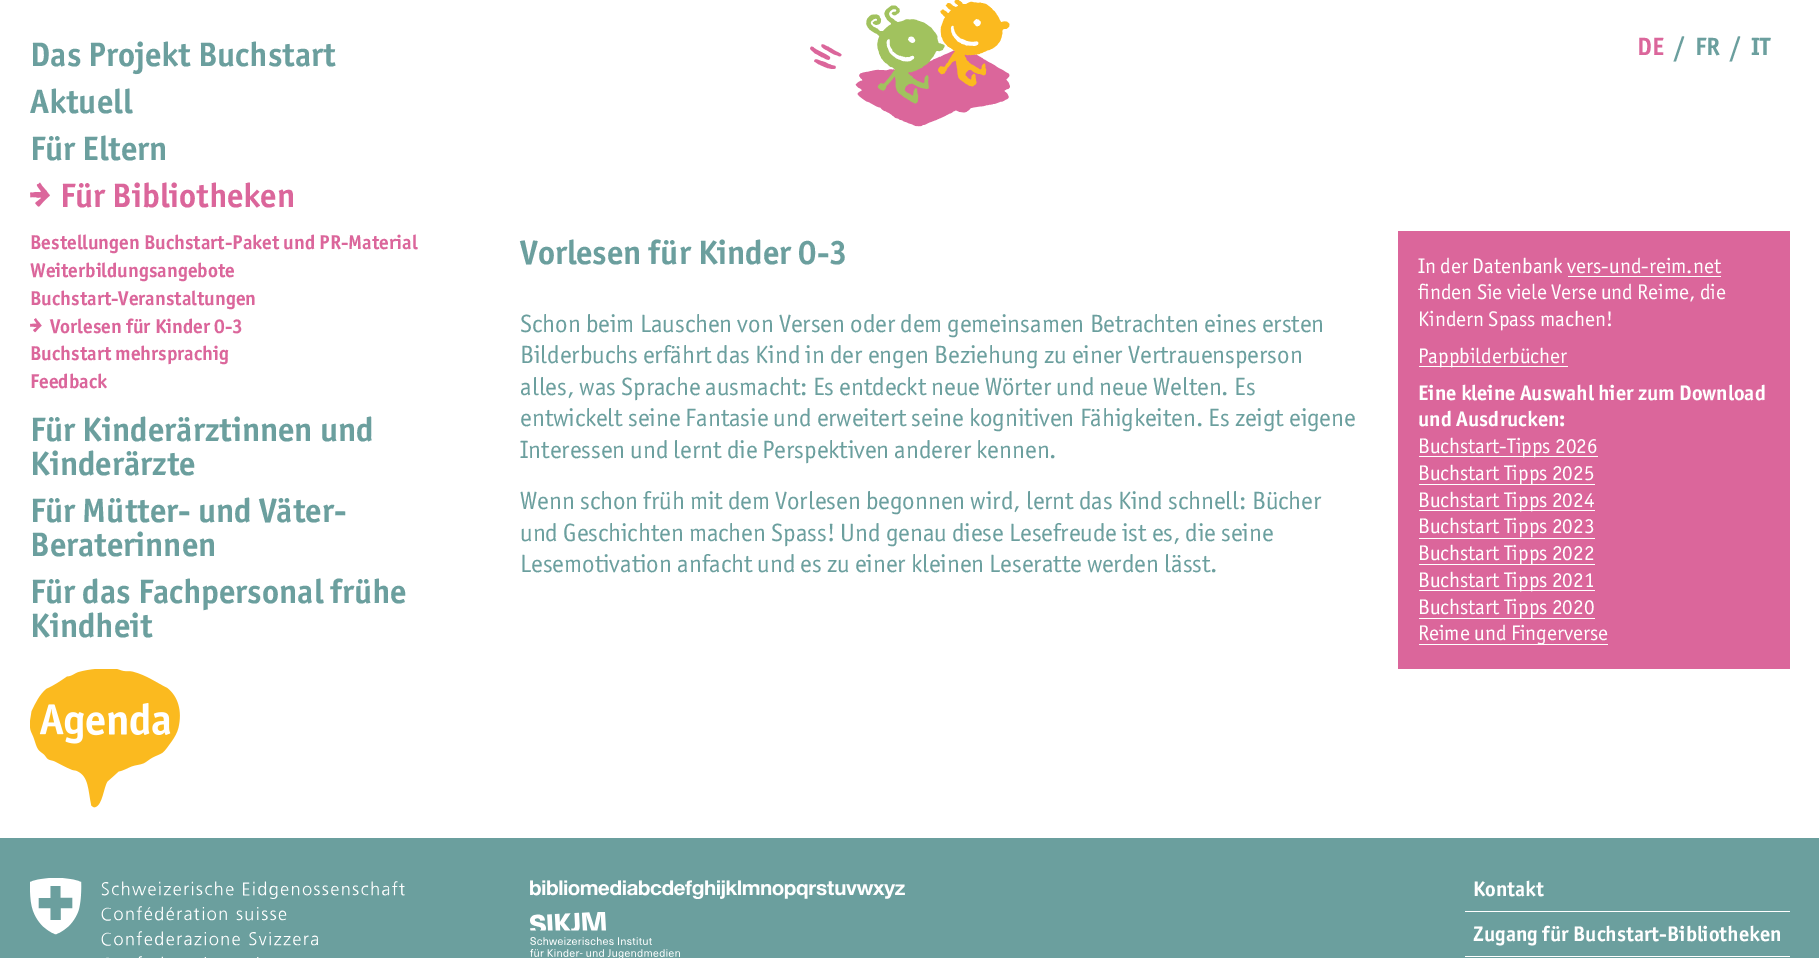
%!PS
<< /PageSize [1819 958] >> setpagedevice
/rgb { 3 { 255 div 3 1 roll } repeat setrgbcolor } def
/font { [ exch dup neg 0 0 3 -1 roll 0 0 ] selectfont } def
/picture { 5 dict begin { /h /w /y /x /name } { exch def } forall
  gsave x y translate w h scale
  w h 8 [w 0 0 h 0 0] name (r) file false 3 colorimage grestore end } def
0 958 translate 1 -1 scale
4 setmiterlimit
255 255 255 rgb
0 0 1819 958 rectfill
(img/1.rgb) 810 0 200 127 picture
(img/2.rgb) 30 182 20 25 picture
(img/3.rgb) 30 318 12 15 picture
(img/4.rgb) 30 669 150 139 picture
[
  [1398 231 392 438 219 102 155]
  [1568 276 153 1 255 255 255]
  [1419 366 149 1 255 255 255]
  [1419 456 179 1 255 255 255]
  [1419 484 176 1 255 255 255]
  [1419 510 176 1 255 255 255]
  [1419 538 176 1 255 255 255]
  [1419 564 176 1 255 255 255]
  [1419 590 176 1 255 255 255]
  [1419 618 176 1 255 255 255]
  [1419 644 189 1 255 255 255]
  [0 838 1819 120 107 159 158]
] { aload pop rgb rectfill } forall
(img/5.rgb) 30 878 375 80 picture
(img/6.rgb) 530 880 375 19 picture
(img/7.rgb) 530 912 150 46 picture
255 255 255 rgb
1465 911 325 1 rectfill
1465 956 325 1 rectfill
/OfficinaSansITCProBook-Bold 25 font
219 102 155 rgb
1637 55 moveto (DE) show
107 159 158 rgb
[
  [(/) 1674 55]
  [(FR) 1695 55]
  [(/) 1730 55]
  [(IT) 1751 55]
] { aload pop moveto show } forall
/OfficinaSansITCProBook-Bold 34 font
[
  [(Das Projekt Buchstart) 30 66]
  [(Aktuell) 30 113]
  [(Für Eltern) 30 160]
] { aload pop moveto show } forall
219 102 155 rgb
60 207 moveto (Für Bibliotheken) show
/OfficinaSansITCProBook-Bold 20 font
[
  [(Bestellungen Buchstart-Paket und PR-Material) 30 249]
  [(Weiterbildungsangebote) 30 277]
  [(Buchstart-Veranstaltungen) 30 305]
  [(Vorlesen für Kinder 0-3) 50 333]
  [(Buchstart mehrsprachig) 30 360]
  [(Feedback) 30 388]
] { aload pop moveto show } forall
/OfficinaSansITCProBook-Bold 34 font
107 159 158 rgb
[
  [(Für Kinderärztinnen und) 30 441]
  [(Kinderärzte) 30 475]
  [(Für Mütter- und Väter-) 30 522]
  [(Beraterinnen) 30 556]
  [(Für das Fachpersonal frühe) 30 603]
  [(Kindheit) 30 637]
  [(Vorlesen für Kinder 0-3) 520 264]
] { aload pop moveto show } forall
/OfficinaSansITCProBook-Regular 25 font
[
  [(Schon beim Lauschen von Versen oder dem gemeinsamen Betrachten eines ersten) 520 332]
  [(Bilderbuchs erfährt das Kind in der engen Beziehung zu einer Vertrauensperson) 520 363]
  [(alles, was Sprache ausmacht: Es entdeckt neue Wörter und neue Welten. Es) 520 395]
  [(entwickelt seine Fantasie und erweitert seine kognitiven Fähigkeiten. Es zeigt eigene) 520 426]
  [(Interessen und lernt die Perspektiven anderer kennen.) 520 458]
  [(Wenn schon früh mit dem Vorlesen begonnen wird, lernt das Kind schnell: Bücher) 520 509]
  [(und Geschichten machen Spass! Und genau diese Lesefreude ist es, die seine) 520 541]
  [(Lesemotivation anfacht und es zu einer kleinen Leseratte werden lässt.) 520 572]
] { aload pop moveto show } forall
/OfficinaSansITCProBook-Regular 21.25 font
255 255 255 rgb
[
  [(In der Datenbank vers-und-reim.net) 1418 273]
  [(finden Sie viele Verse und Reime, die) 1418 299]
  [(Kindern Spass machen!) 1418 326]
  [(Pappbilderbücher) 1418 363]
] { aload pop moveto show } forall
/OfficinaSansITCProBook-Bold 21.25 font
1418 400 moveto (Eine kleine Auswahl hier zum Download) show
1418 426 moveto (und Ausdrucken:) show
/OfficinaSansITCProBook-Regular 21.25 font
[
  [(Buchstart-Tipps 2026) 1418 453]
  [(Buchstart Tipps 2025) 1418 480]
  [(Buchstart Tipps 2024) 1418 507]
  [(Buchstart Tipps 2023) 1418 533]
  [(Buchstart Tipps 2022) 1418 560]
  [(Buchstart Tipps 2021) 1418 587]
  [(Buchstart Tipps 2020) 1418 614]
  [(Reime und Fingerverse) 1418 640]
] { aload pop moveto show } forall
/OfficinaSansITCProBook-Bold 21.25 font
1473 896 moveto (Kontakt) show
1473 941 moveto (Zugang für Buchstart-Bibliotheken) show
showpage
